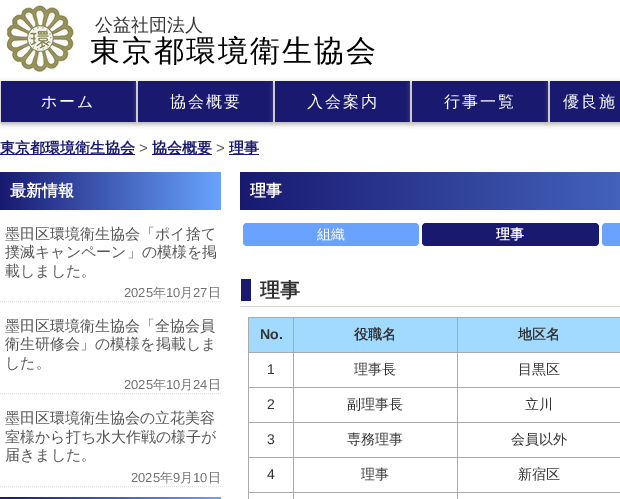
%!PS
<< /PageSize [620 499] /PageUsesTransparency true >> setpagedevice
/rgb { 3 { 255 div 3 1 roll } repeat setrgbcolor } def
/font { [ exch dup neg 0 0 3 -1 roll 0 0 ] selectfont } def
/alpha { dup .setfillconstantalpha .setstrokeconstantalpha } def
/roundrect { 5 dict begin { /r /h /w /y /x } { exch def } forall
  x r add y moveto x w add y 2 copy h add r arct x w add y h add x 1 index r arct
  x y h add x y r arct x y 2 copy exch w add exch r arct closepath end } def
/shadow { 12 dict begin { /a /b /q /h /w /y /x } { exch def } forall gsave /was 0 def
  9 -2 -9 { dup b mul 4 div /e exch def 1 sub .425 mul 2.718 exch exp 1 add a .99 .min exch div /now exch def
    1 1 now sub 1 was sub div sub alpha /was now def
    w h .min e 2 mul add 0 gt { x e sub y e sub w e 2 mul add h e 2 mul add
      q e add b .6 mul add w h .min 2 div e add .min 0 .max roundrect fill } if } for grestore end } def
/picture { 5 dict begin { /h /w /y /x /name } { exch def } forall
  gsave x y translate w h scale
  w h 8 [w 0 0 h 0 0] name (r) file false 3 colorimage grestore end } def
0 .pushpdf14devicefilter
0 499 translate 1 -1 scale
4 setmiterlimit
255 255 255 rgb
0 0 620 499 rectfill
(img/1.rgb) 5 3 70 70 picture
170 170 170 rgb
1 83 135 41 0 2.5 1 shadow
25 25 112 rgb
1 81 135 41 rectfill
170 170 170 rgb
138 83 135 41 0 2.5 1 shadow
25 25 112 rgb
138 81 135 41 rectfill
170 170 170 rgb
275 83 135 41 0 2.5 1 shadow
25 25 112 rgb
275 81 135 41 rectfill
170 170 170 rgb
412 83 136 41 0 2.5 1 shadow
25 25 112 rgb
412 81 136 41 rectfill
170 170 170 rgb
550 83 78 41 0 2.5 1 shadow
[
  [550 81 70 41 25 25 112]
  [0 154 135 1 25 25 112]
  [152 154 60 1 25 25 112]
  [229 154 30 1 25 25 112]
] { aload pop rgb rectfill } forall
gsave 0 172 moveto 221 172 lineto 221 210 lineto 0 210 lineto closepath clip newpath
<< /ShadingType 2 /ColorSpace /DeviceRGB /Coords [0 191 221 191] /Extend [true true] /Function << /FunctionType 2 /Domain [0 1] /C0 [0.098 0.098 0.439] /C1 [0.412 0.639 1] /N 1 >> >> shfill grestore
226 226 226 rgb
[1 1] 0 setdash
0 301.5 moveto 221 301.5 lineto stroke
0 393.5 moveto 221 393.5 lineto stroke
0 486.5 moveto 221 486.5 lineto stroke
gsave 0 497 moveto 221 497 lineto 221 499 lineto 0 499 lineto closepath clip newpath
<< /ShadingType 2 /ColorSpace /DeviceRGB /Coords [0 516 221 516] /Extend [true true] /Function << /FunctionType 2 /Domain [0 1] /C0 [0.098 0.098 0.439] /C1 [0.412 0.639 1] /N 1 >> >> shfill grestore
gsave 240 172 moveto 620 172 lineto 620 210 lineto 240 210 lineto closepath clip newpath
<< /ShadingType 2 /ColorSpace /DeviceRGB /Coords [240 191 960 191] /Extend [true true] /Function << /FunctionType 2 /Domain [0 1] /C0 [0.098 0.098 0.439] /C1 [0.412 0.639 1] /N 1 >> >> shfill grestore
105 163 255 rgb
243 223 176 23 4 roundrect fill
25 25 112 rgb
422 223 177 23 4 roundrect fill
105 163 255 rgb
602 223 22 23 4 roundrect fill
[
  [240 306 380 1 213 213 213]
  [241 279 10 22 25 25 112]
  [249 318 44 34 162 217 255]
  [457 317 163 1 170 170 170]
  [457 352 163 1 170 170 170]
  [457 387 163 1 170 170 170]
  [457 422 163 1 170 170 170]
  [457 457 163 1 170 170 170]
  [457 492 163 1 170 170 170]
  [457 492 1 7 170 170 170]
  [293 492 165 1 170 170 170]
  [457 457 1 36 170 170 170]
  [293 457 165 1 170 170 170]
  [457 422 1 36 170 170 170]
  [293 422 165 1 170 170 170]
  [457 387 1 36 170 170 170]
  [293 387 165 1 170 170 170]
  [457 352 1 36 170 170 170]
  [293 352 165 1 170 170 170]
  [457 317 1 36 170 170 170]
  [293 317 165 1 170 170 170]
  [293 492 1 7 170 170 170]
  [248 492 46 1 170 170 170]
  [293 457 1 36 170 170 170]
  [248 457 46 1 170 170 170]
  [293 422 1 36 170 170 170]
  [248 422 46 1 170 170 170]
  [293 387 1 36 170 170 170]
  [248 387 46 1 170 170 170]
  [293 352 1 36 170 170 170]
  [248 352 46 1 170 170 170]
  [293 317 1 36 170 170 170]
  [248 317 46 1 170 170 170]
  [248 492 1 7 170 170 170]
  [248 457 1 36 170 170 170]
  [248 422 1 36 170 170 170]
  [248 387 1 36 170 170 170]
  [248 352 1 36 170 170 170]
  [248 317 1 36 170 170 170]
  [294 318 163 34 162 217 255]
  [458 318 162 34 162 217 255]
] { aload pop rgb rectfill } forall
/WenQuanYiZenHei-Medium 18 font
51 51 51 rgb
95 31 moveto (公益社団法人) show
/WenQuanYiZenHei-Medium 30 font
0 0 0 rgb
90 61 moveto 2 0 (東京都環境衛生協会) ashow
/WenQuanYiZenHei-Medium 16 font
255 255 255 rgb
41 107 moveto 2 0 (ホーム) ashow
170 107 moveto 2 0 (協会概要) ashow
307 107 moveto 2 0 (入会案内) ashow
444 107 moveto 2 0 (行事一覧) ashow
563 107 moveto 2 0 (優良施) ashow
/WenQuanYiZenHei-Bold 15 font
25 25 112 rgb
0 153 moveto (東京都環境衛生協会) show
/LiberationSans-Regular 15 font
85 85 85 rgb
139 153 moveto (>) show
/WenQuanYiZenHei-Bold 15 font
25 25 112 rgb
152 153 moveto (協会概要) show
/LiberationSans-Regular 15 font
85 85 85 rgb
216 153 moveto (>) show
/WenQuanYiZenHei-Bold 15 font
25 25 112 rgb
229 153 moveto (理事) show
/WenQuanYiZenHei-Bold 16 font
255 255 255 rgb
10 196 moveto (最新情報) show
/WenQuanYiZenHei-Medium 15 font
85 85 85 rgb
[
  [(墨田区環境衛生協会「ポイ捨て) 5 239]
  [(撲滅キャンペーン」の模様を掲) 5 257]
  [(載しました。) 5 276]
] { aload pop moveto show } forall
/LiberationSans-Regular 13 font
114 113 113 rgb
124 297 moveto (2025) show
/WenQuanYiZenHei-Medium 13 font
153 297 moveto (年) show
/LiberationSans-Regular 13 font
166 297 moveto (10) show
/WenQuanYiZenHei-Medium 13 font
180 297 moveto (月) show
/LiberationSans-Regular 13 font
193 297 moveto (27) show
/WenQuanYiZenHei-Medium 13 font
208 297 moveto (日) show
/WenQuanYiZenHei-Medium 15 font
85 85 85 rgb
[
  [(墨田区環境衛生協会「全協会員) 5 331]
  [(衛生研修会」の模様を掲載しま) 5 349]
  [(した。) 5 368]
] { aload pop moveto show } forall
/LiberationSans-Regular 13 font
114 113 113 rgb
124 389 moveto (2025) show
/WenQuanYiZenHei-Medium 13 font
153 389 moveto (年) show
/LiberationSans-Regular 13 font
166 389 moveto (10) show
/WenQuanYiZenHei-Medium 13 font
180 389 moveto (月) show
/LiberationSans-Regular 13 font
193 389 moveto (24) show
/WenQuanYiZenHei-Medium 13 font
208 389 moveto (日) show
/WenQuanYiZenHei-Medium 15 font
85 85 85 rgb
[
  [(墨田区環境衛生協会の立花美容) 5 423]
  [(室様から打ち水大作戦の様子が) 5 442]
  [(届きました。) 5 460]
] { aload pop moveto show } forall
/LiberationSans-Regular 13 font
114 113 113 rgb
131 482 moveto (2025) show
/WenQuanYiZenHei-Medium 13 font
160 482 moveto (年) show
/LiberationSans-Regular 13 font
173 482 moveto (9) show
/WenQuanYiZenHei-Medium 13 font
180 482 moveto (月) show
/LiberationSans-Regular 13 font
193 482 moveto (10) show
/WenQuanYiZenHei-Medium 13 font
208 482 moveto (日) show
/WenQuanYiZenHei-Bold 16 font
255 255 255 rgb
250 196 moveto (理事) show
/WenQuanYiZenHei-Medium 14 font
317 239 moveto (組織) show
/WenQuanYiZenHei-Bold 14 font
496 239 moveto (理事) show
/WenQuanYiZenHei-Bold 20 font
51 51 51 rgb
260 297 moveto (理事) show
/LiberationSans-Bold 14 font
260 339 moveto (No.) show
/WenQuanYiZenHei-Bold 14 font
354 339 moveto (役職名) show
518 339 moveto (地区名) show
/LiberationSans-Regular 14 font
267 374 moveto (1) show
/WenQuanYiZenHei-Medium 14 font
354 374 moveto (理事長) show
518 374 moveto (目黒区) show
/LiberationSans-Regular 14 font
267 409 moveto (2) show
/WenQuanYiZenHei-Medium 14 font
347 409 moveto (副理事長) show
525 409 moveto (立川) show
/LiberationSans-Regular 14 font
267 444 moveto (3) show
/WenQuanYiZenHei-Medium 14 font
347 444 moveto (専務理事) show
511 444 moveto (会員以外) show
/LiberationSans-Regular 14 font
267 479 moveto (4) show
/WenQuanYiZenHei-Medium 14 font
361 479 moveto (理事) show
518 479 moveto (新宿区) show
.poppdf14devicefilter showpage
